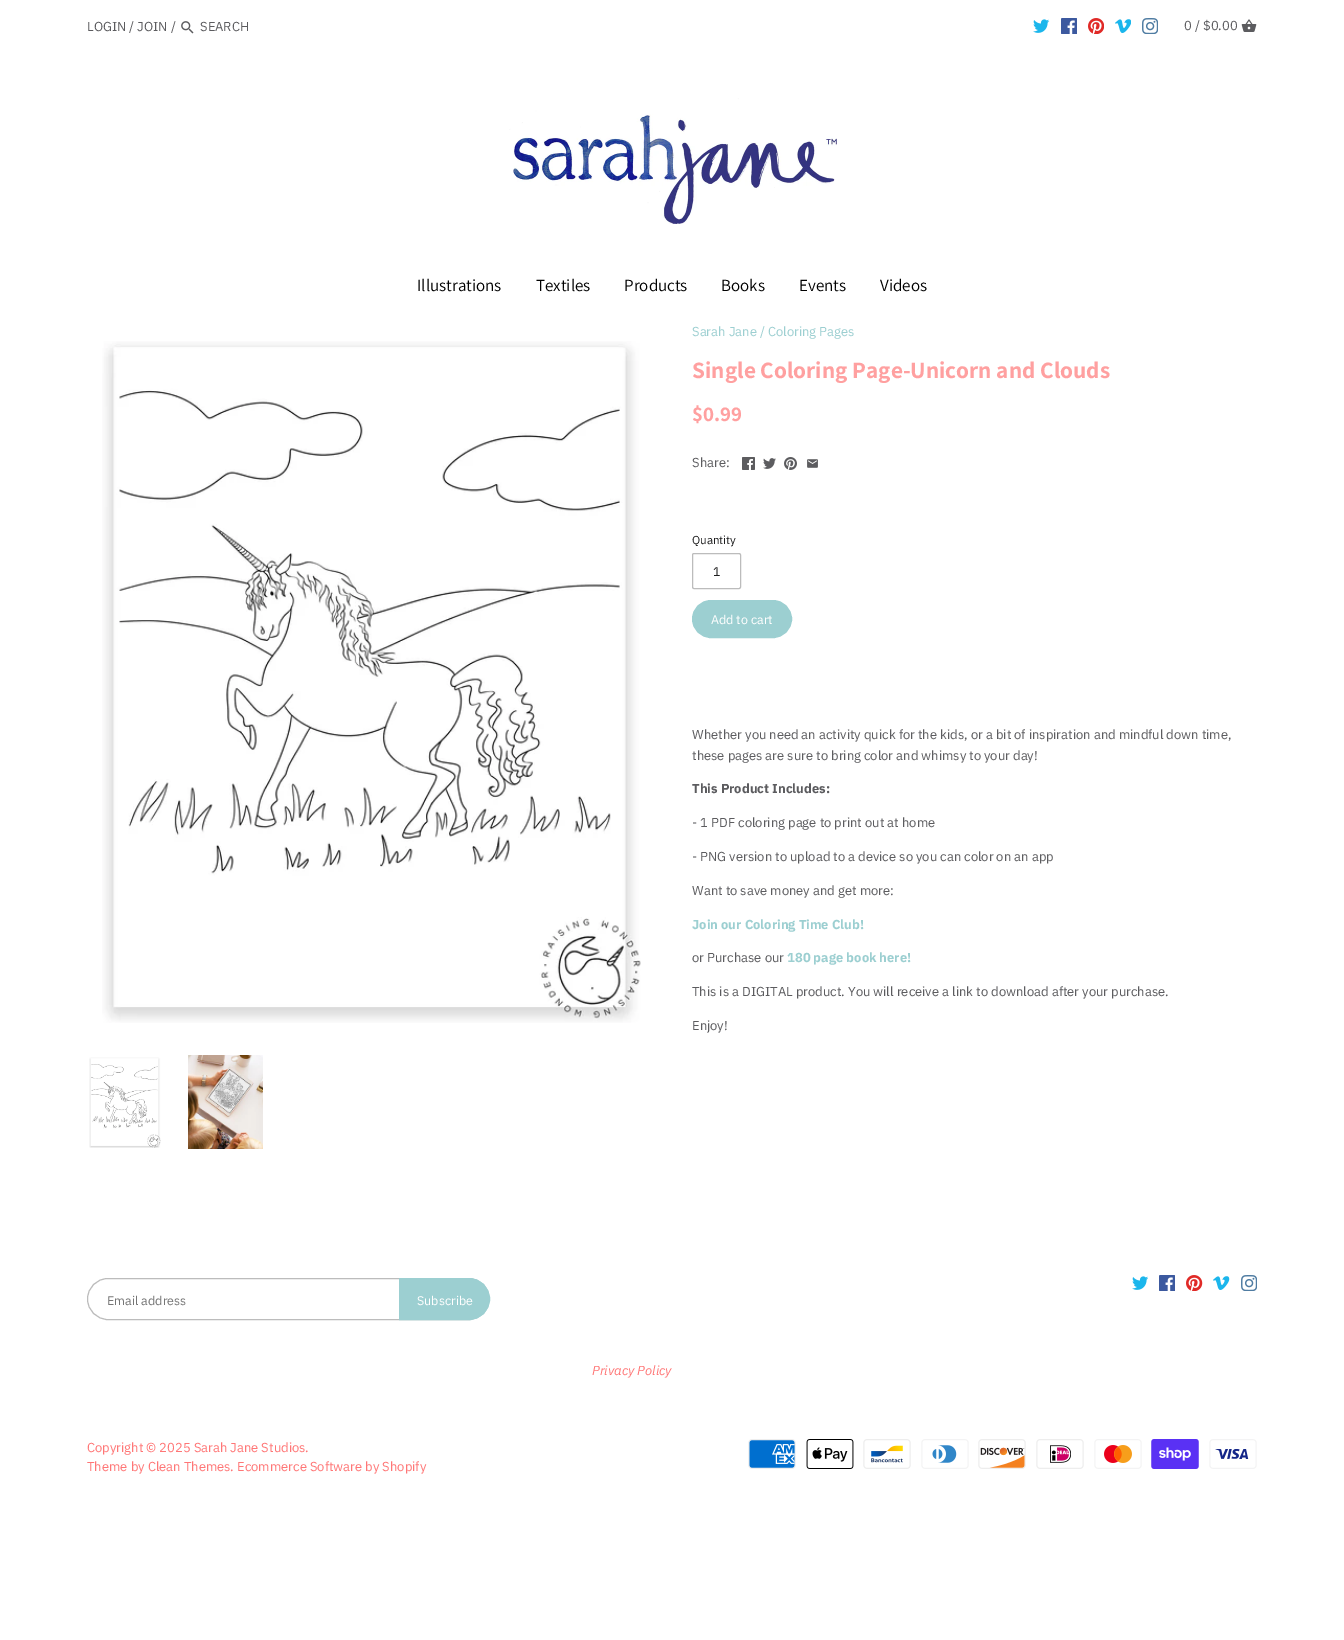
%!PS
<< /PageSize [1344 1640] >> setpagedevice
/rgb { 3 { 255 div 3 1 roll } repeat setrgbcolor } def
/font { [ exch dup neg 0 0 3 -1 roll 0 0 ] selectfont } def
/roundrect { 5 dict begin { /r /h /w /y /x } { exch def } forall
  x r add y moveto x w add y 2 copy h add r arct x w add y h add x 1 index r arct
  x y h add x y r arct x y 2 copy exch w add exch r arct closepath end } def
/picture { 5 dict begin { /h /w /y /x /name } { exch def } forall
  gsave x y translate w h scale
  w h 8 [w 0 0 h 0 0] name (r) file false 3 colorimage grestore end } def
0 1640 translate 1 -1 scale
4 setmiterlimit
255 255 255 rgb
0 0 1344 1640 rectfill
(img/1.rgb) 181 21 13 13 picture
(img/2.rgb) 1033 19 17 14 picture
(img/3.rgb) 1061 18 16 16 picture
(img/4.rgb) 1088 18 16 16 picture
(img/5.rgb) 1115 19 16 14 picture
(img/6.rgb) 1142 18 16 16 picture
(img/7.rgb) 1241 19 16 13 picture
(img/8.rgb) 509 98 328 126 picture
(img/9.rgb) 102 341 539 682 picture
(img/10.rgb) 89 1057 72 91 picture
(img/11.rgb) 188 1055 75 94 picture
(img/12.rgb) 742 457 13 13 picture
(img/13.rgb) 763 458 13 11 picture
(img/14.rgb) 784 457 13 13 picture
(img/15.rgb) 807 459 11 9 picture
188 188 188 rgb
692.5 553.5 48 35 1.5 roundrect stroke
156 207 209 rgb
693 601 98 36 18 roundrect gsave fill grestore
2 setlinewidth
stroke
(img/16.rgb) 1132 1276 16 14 picture
(img/3.rgb) 1159 1275 16 16 picture
(img/17.rgb) 1186 1275 17 16 picture
(img/18.rgb) 1213 1276 17 14 picture
(img/6.rgb) 1241 1275 16 16 picture
188 188 188 rgb
1 setlinewidth
87.5 1278.5 401 41 20.5 roundrect stroke
156 207 209 rgb
399.5 1278.5 moveto 469 1278.5 lineto 480.5 1278.5 489.5 1287.5 489.5 1299 curveto 489.5 1310.5 480.5 1319.5 469 1319.5 curveto 399.5 1319.5 lineto closepath gsave fill grestore
stroke
(img/19.rgb) 748 1439 48 30 picture
(img/20.rgb) 806 1439 48 30 picture
(img/21.rgb) 863 1439 48 30 picture
(img/22.rgb) 921 1439 48 30 picture
(img/23.rgb) 978 1439 48 30 picture
(img/24.rgb) 1036 1439 48 30 picture
(img/25.rgb) 1094 1439 48 30 picture
(img/26.rgb) 1151 1439 48 30 picture
(img/27.rgb) 1209 1439 48 30 picture
/IBMPlexSans-Regular 13 font
92 92 95 rgb
[
  [(LOGIN / JOIN /) 87 31]
  [(SEARCH) 200 31]
  [(0 / $0.00) 1184 30]
] { aload pop moveto show } forall
/Assistant-Regular 17 font
0 0 0 rgb
[
  [(Illustrations) 417 291]
  [(Textiles) 536 291]
  [(Products) 624 291]
  [(Books) 721 291]
  [(Events) 799 291]
  [(Videos) 880 291]
] { aload pop moveto show } forall
/IBMPlexSans-Regular 13 font
156 207 209 rgb
692 336 moveto (Sarah Jane / Coloring Pages) show
/Assistant-Bold 23.4 font
255 160 160 rgb
692 378 moveto (Single Coloring Page-Unicorn and Clouds) show
/Assistant-Bold 21 font
692 421 moveto ($0.99) show
/IBMPlexSans-Regular 13 font
92 92 95 rgb
692 467 moveto (Share:) show
/IBMPlexSans-Regular 11.5 font
29 29 30 rgb
692 544 moveto (Quantity) show
/IBMPlexSans-Regular 12.5 font
713 576 moveto (1) show
255 255 255 rgb
711 624 moveto (Add to cart) show
/IBMPlexSans-Regular 13 font
92 92 95 rgb
692 739 moveto (Whether you need an activity quick for the kids, or a bit of inspiration and mindful down time,) show
692 760 moveto (these pages are sure to bring color and whimsy to your day!) show
/IBMPlexSans-Bold 13 font
692 793 moveto (This Product Includes:) show
/IBMPlexSans-Regular 13 font
[
  [(- 1 PDF coloring page to print out at home) 692 827]
  [(- PNG version to upload to a device so you can color on an app) 692 861]
  [(Want to save money and get more:) 692 895]
] { aload pop moveto show } forall
/IBMPlexSans-Bold 13 font
156 207 209 rgb
692 929 moveto (Join our Coloring Time Club!) show
/IBMPlexSans-Regular 13 font
92 92 95 rgb
692 962 moveto (or Purchase our) show
/IBMPlexSans-Bold 13 font
156 207 209 rgb
787 962 moveto (180 page book here!) show
/IBMPlexSans-Regular 13 font
92 92 95 rgb
692 996 moveto (This is a DIGITAL product. You will receive a link to download after your purchase.) show
692 1030 moveto (Enjoy!) show
/IBMPlexSans-Regular 12.5 font
117 117 117 rgb
107 1305 moveto (Email address) show
255 255 255 rgb
417 1305 moveto (Subscribe) show
/IBMPlexSans-Italic 13 font
255 118 118 rgb
592 1375 moveto (Privacy Policy) show
/IBMPlexSans-Regular 13 font
87 1452 moveto (Copyright © 2025 Sarah Jane Studios.) show
87 1471 moveto (Theme by Clean Themes. Ecommerce Software by Shopify) show
showpage
